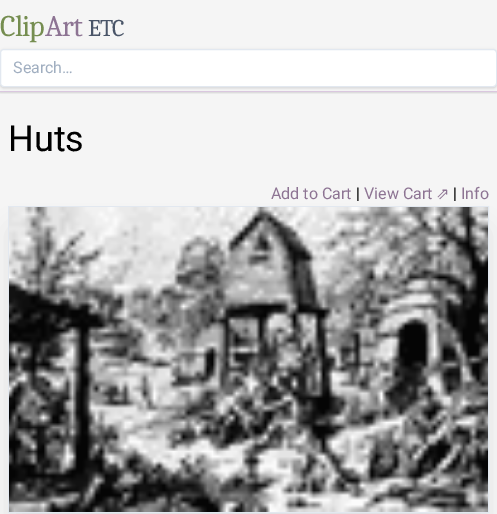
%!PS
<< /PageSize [497 514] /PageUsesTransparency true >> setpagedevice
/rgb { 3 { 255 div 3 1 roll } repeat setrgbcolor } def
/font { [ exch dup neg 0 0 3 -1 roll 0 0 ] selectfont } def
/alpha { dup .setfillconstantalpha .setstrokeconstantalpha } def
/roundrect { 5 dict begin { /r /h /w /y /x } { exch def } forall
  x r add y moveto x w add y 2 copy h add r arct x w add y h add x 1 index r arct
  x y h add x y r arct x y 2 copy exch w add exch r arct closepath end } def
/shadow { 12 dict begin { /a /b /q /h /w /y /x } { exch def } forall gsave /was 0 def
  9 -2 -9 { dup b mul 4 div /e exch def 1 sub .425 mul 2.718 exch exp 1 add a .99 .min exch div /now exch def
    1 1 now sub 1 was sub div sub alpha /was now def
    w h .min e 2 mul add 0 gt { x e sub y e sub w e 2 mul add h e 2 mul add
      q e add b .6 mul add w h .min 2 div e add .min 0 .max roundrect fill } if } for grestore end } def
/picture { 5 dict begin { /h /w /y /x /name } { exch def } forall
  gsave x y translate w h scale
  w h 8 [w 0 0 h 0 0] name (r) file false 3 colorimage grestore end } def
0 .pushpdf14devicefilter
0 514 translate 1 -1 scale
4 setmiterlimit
245 245 245 rgb
0 0 497 514 rectfill
gsave
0 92 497 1 rectclip
0 0 0 rgb
0 1 497 92 0 1 0.06 shadow
grestore
gsave
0 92 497 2 rectclip
0 0 0 rgb
0 1 497 92 0 1.5 0.1 shadow
grestore
219 200 224 rgb
0 91 497 1 rectfill
0 0 0 rgb
0 50 497 38 4 1 0.06 shadow
0 50 497 38 4 1.5 0.1 shadow
255 255 255 rgb
0.5 49.5 496 37 3.5 roundrect gsave fill grestore
226 232 240 rgb
stroke
0 0 0 rgb
13 231 471 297 0 12.5 0.1 shadow
226 232 240 rgb
8.5 206.5 480 306 rectstroke
(img/1.rgb) 9 207 479 305 picture
/Caladea-Regular 30 font
117 141 80 rgb
0 36 moveto -1 0 (Clip) ashow
141 116 147 rgb
45 36 moveto -1 0 (Art) ashow
/Caladea-Regular 24 font
74 85 104 rgb
88 36 moveto -1 0 (ETC) ashow
/Roboto-Regular 16 font
160 174 192 rgb
13 73 moveto (Search…) show
/Roboto-Regular 36 font
0 0 0 rgb
8 151 moveto (Huts) show
/Roboto-Regular 16 font
141 116 147 rgb
271 199 moveto (Add to Cart) show
0 0 0 rgb
356 199 moveto (|) show
141 116 147 rgb
364 199 moveto (View Cart) show
/DejaVuSans-Regular 16 font
436 199 moveto (⇗) show
/Roboto-Regular 16 font
0 0 0 rgb
453 199 moveto (|) show
141 116 147 rgb
461 199 moveto (Info) show
.poppdf14devicefilter showpage
